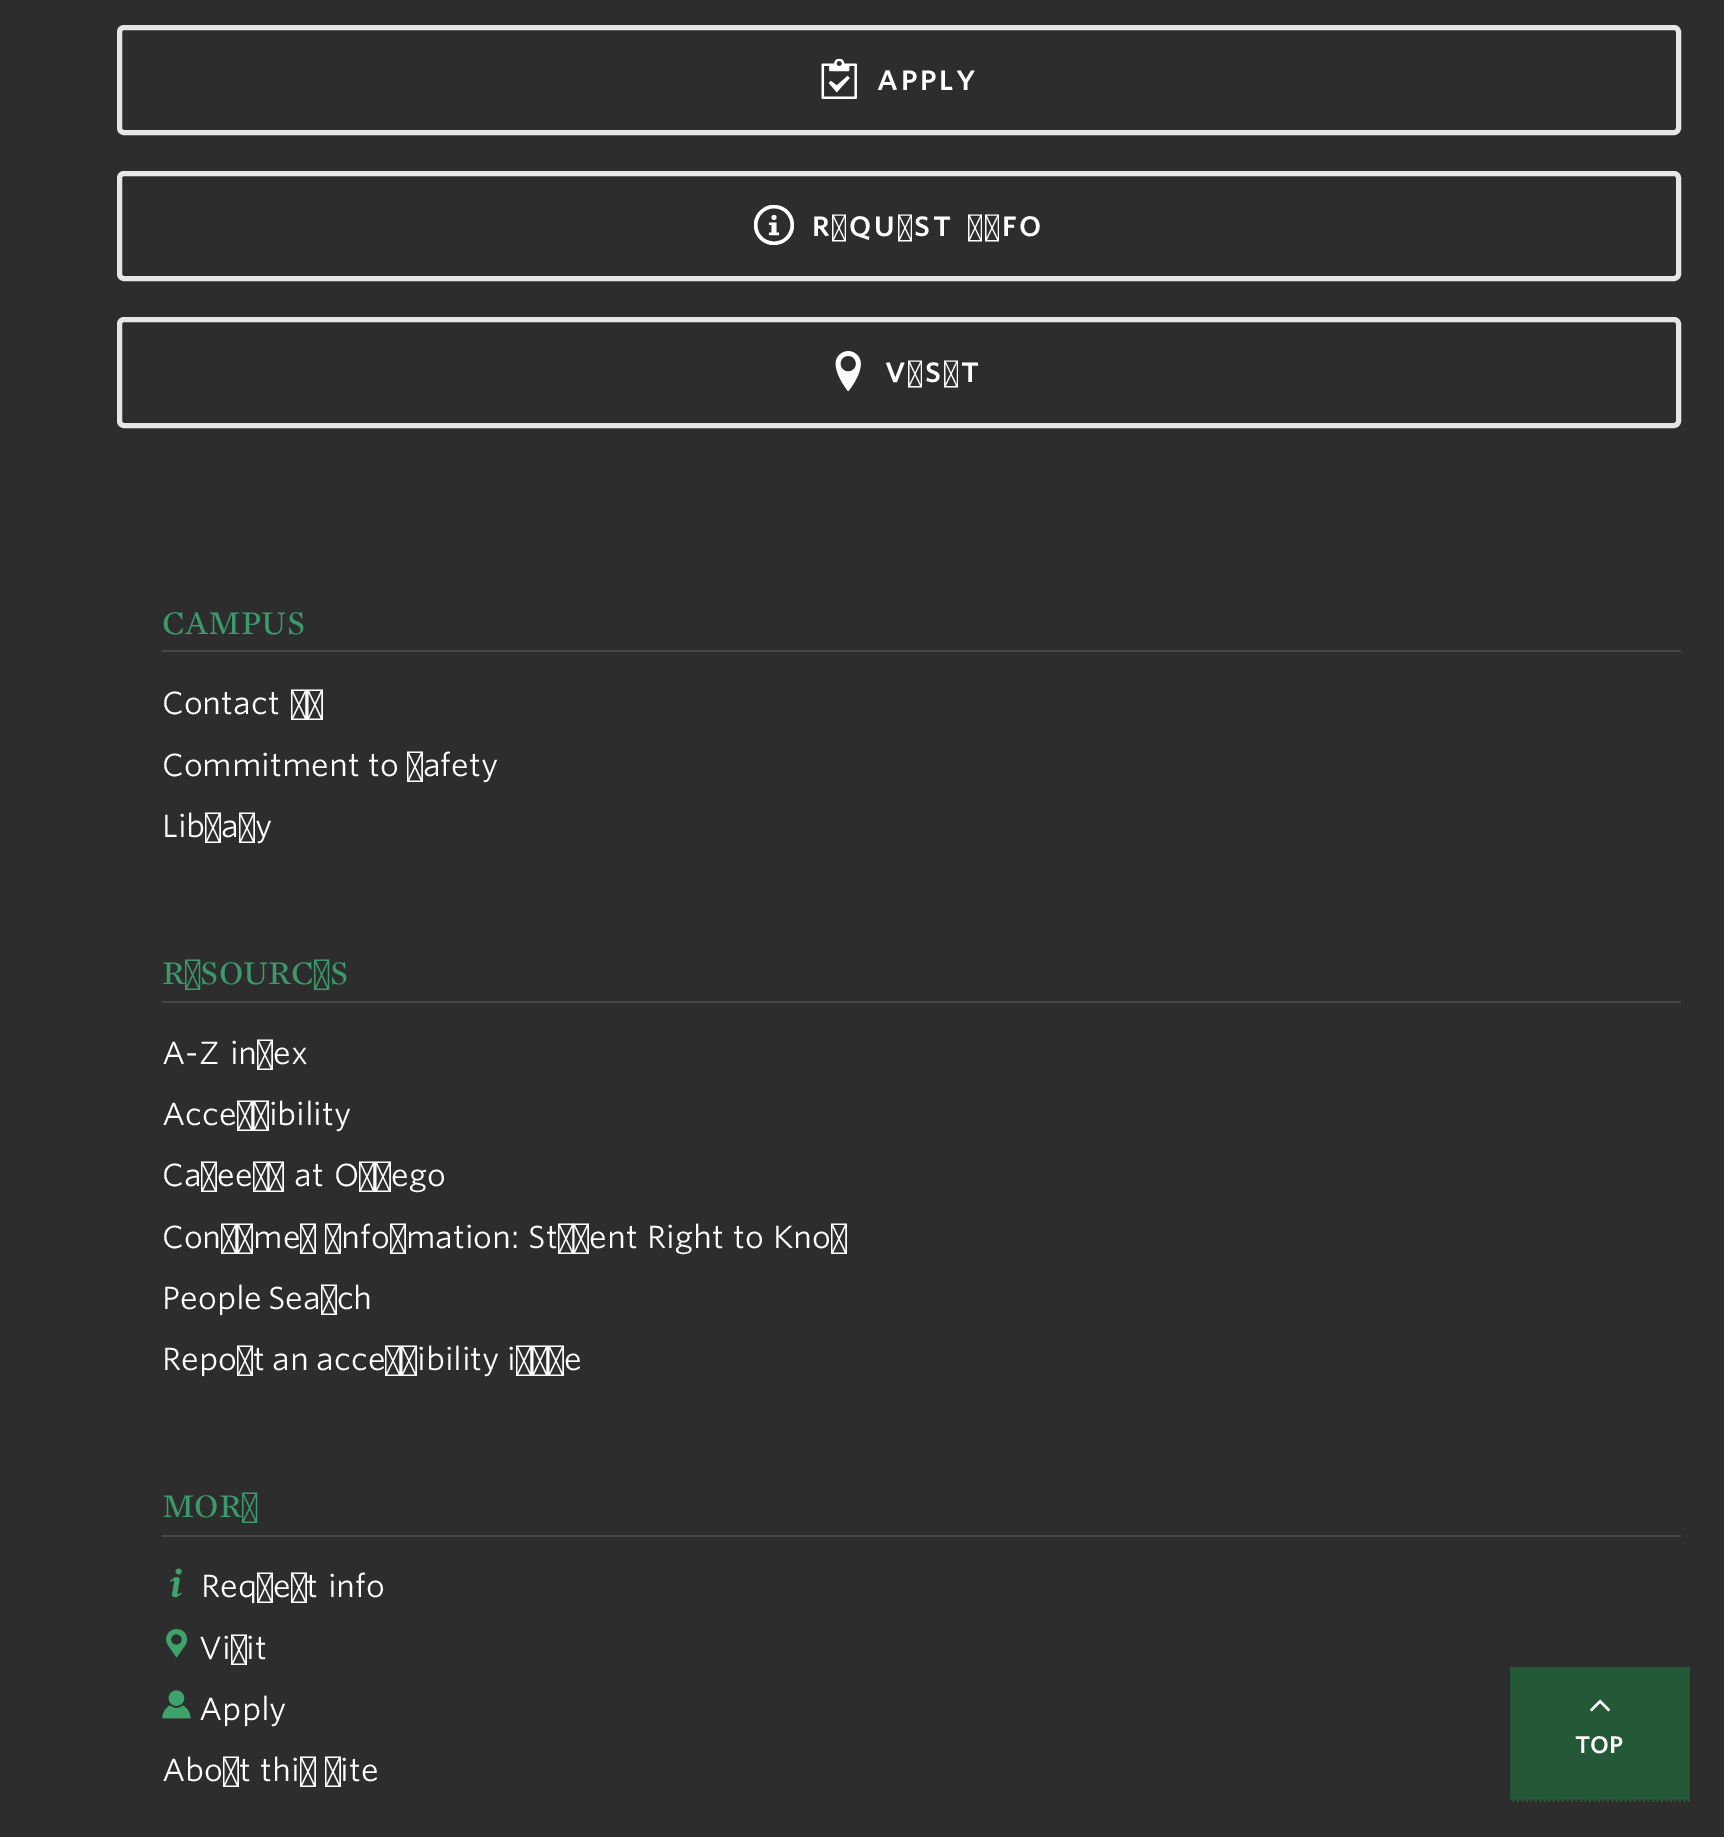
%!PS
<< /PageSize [1724 1837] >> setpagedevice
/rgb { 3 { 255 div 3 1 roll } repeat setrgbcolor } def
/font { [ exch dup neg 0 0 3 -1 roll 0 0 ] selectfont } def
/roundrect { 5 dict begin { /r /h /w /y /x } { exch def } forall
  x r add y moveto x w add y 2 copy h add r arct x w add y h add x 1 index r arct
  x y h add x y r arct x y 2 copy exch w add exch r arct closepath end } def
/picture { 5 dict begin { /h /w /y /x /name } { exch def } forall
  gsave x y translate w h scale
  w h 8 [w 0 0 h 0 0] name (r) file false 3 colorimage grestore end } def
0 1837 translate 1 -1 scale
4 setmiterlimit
45 45 45 rgb
0 0 1724 1837 rectfill
230 230 230 rgb
5 setlinewidth
119.5 27.5 1559 105 4.5 roundrect stroke
(img/1.rgb) 821 58 36 41 picture
119.5 173.5 1559 105 4.5 roundrect stroke
(img/2.rgb) 754 205 40 40 picture
119.5 319.5 1559 106 4.5 roundrect stroke
(img/3.rgb) 835 351 26 41 picture
[
  [162 650 1519 2 70 71 70]
  [162 1001 1519 2 70 71 70]
  [162 1535 1519 2 70 71 70]
] { aload pop rgb rectfill } forall
(img/4.rgb) 170 1568 12 30 picture
(img/5.rgb) 166 1629 22 29 picture
(img/6.rgb) 162 1690 29 29 picture
35 89 55 rgb
1510 1667 180 135 rectfill
45 45 45 rgb
2.2 setlinewidth
[2.25 2.25] 0 setdash
1510 1801 moveto 1690 1801 lineto stroke
(img/7.rgb) 1590 1699 21 13 picture
/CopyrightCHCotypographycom-Regular 27 font
255 255 255 rgb
877 90 moveto 2.75 0 (APPLY) ashow
812 236 moveto 5 0 32 2.75 0 (REQUEST INFO) awidthshow
885 382 moveto 2.75 0 (VISIT) ashow
/CopyrightCHCotypographycom-Light 30.6 font
59 153 108 rgb
162 634 moveto (CAMPUS) show
/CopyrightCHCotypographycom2-Light 30.6 font
255 255 255 rgb
162 714 moveto 3 0 32 (Contact us) widthshow
162 776 moveto (Commitment to safety) show
162 837 moveto (Library) show
/CopyrightCHCotypographycom-Light 30.6 font
59 153 108 rgb
162 984 moveto (RESOURCES) show
/CopyrightCHCotypographycom2-Light 30.6 font
255 255 255 rgb
162 1064 moveto 3 0 32 (A-Z index) widthshow
162 1125 moveto (Accessibility) show
162 1186 moveto 2 0 32 (Careers at Oswego) widthshow
162 1248 moveto 1 0 32 (Consumer Information: Student Right to Know) widthshow
162 1309 moveto -2 0 32 (People Search) widthshow
162 1370 moveto -0.5 0 32 (Report an accessibility issue) widthshow
/CopyrightCHCotypographycom-Light 30.6 font
59 153 108 rgb
162 1517 moveto (MORE) show
/CopyrightCHCotypographycom2-Light 30.6 font
255 255 255 rgb
201 1597 moveto 1 0 32 (Request info) widthshow
199 1659 moveto (Visit) show
199 1720 moveto (Apply) show
162 1781 moveto 1 0 32 (About this site) widthshow
/CopyrightCHCotypographycom-Regular 23 font
1575 1753 moveto (TOP) show
showpage
